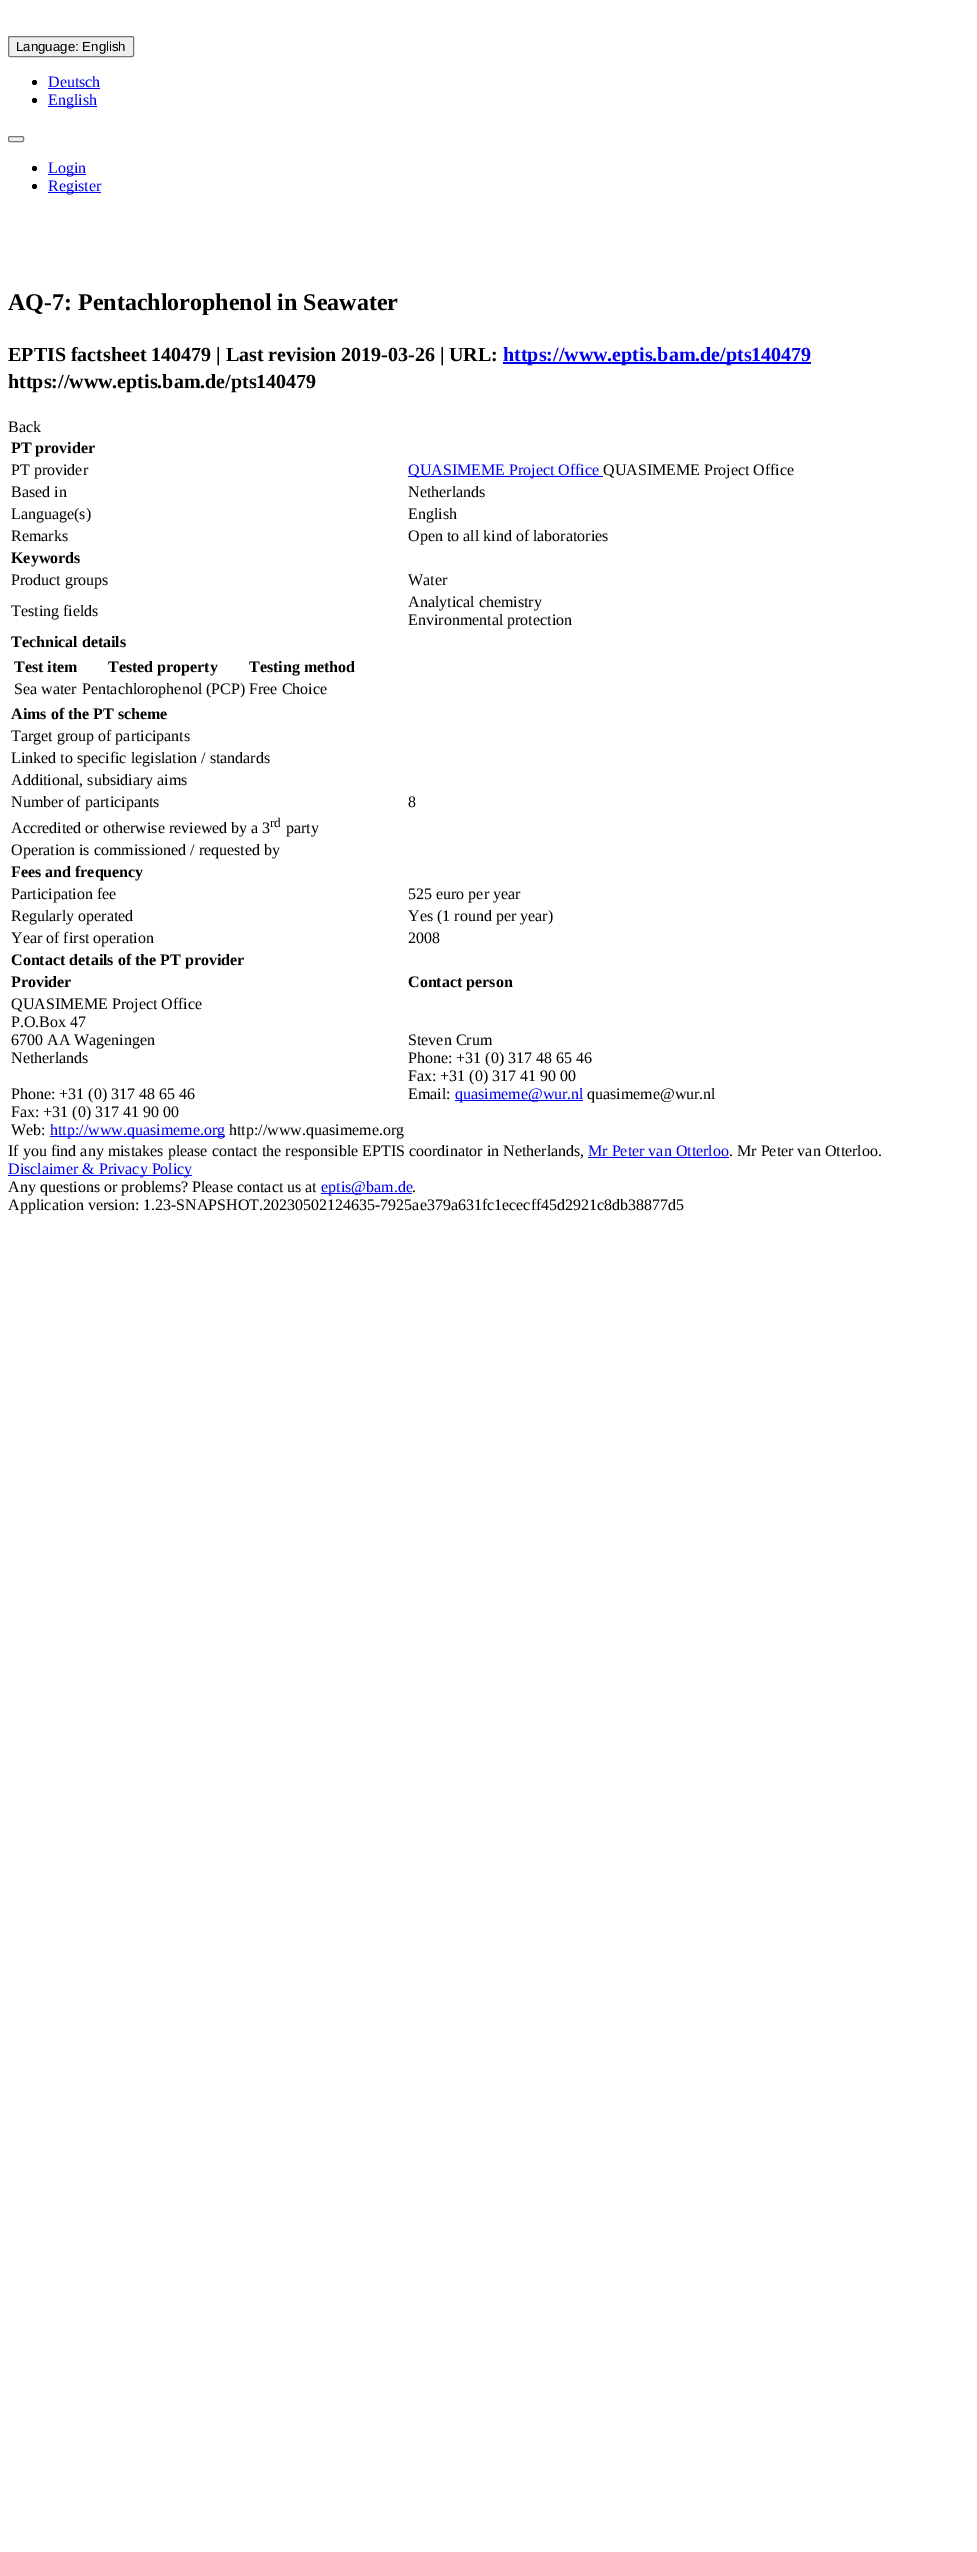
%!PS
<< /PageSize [977 2552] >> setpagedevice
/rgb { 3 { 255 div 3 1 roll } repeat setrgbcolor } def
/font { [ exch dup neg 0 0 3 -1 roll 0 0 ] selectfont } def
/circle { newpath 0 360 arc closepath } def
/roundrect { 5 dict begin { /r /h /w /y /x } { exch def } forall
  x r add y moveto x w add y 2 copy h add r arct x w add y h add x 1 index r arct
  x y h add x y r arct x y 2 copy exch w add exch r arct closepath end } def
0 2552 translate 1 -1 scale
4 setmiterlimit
255 255 255 rgb
0 0 977 2552 rectfill
239 239 239 rgb
8.5 36.5 125 20 1.5 roundrect gsave fill grestore
118 118 118 rgb
stroke
0 0 0 rgb
34.5 82.5 2.5 circle fill
0 0 238 rgb
48 88 52 1 rectfill
0 0 0 rgb
34.5 100.5 2.5 circle fill
0 0 238 rgb
48 106 49 1 rectfill
239 239 239 rgb
8.5 136.5 15 5 1.5 roundrect gsave fill grestore
118 118 118 rgb
stroke
0 0 0 rgb
34.5 168.5 2.5 circle fill
0 0 238 rgb
48 174 38 1 rectfill
0 0 0 rgb
34.5 186.5 2.5 circle fill
[
  [48 192 53 1 0 0 238]
  [503 362 308 2 0 0 238]
  [408 476 195 1 0 0 238]
  [50 1136 175 1 0 0 238]
  [455 1100 128 1 0 0 238]
  [588 1157 141 1 0 0 238]
  [8 1175 184 1 0 0 238]
  [321 1193 91 1 0 0 238]
] { aload pop rgb rectfill } forall
/LiberationSans-Regular 13.25 font
0 0 0 rgb
16 51 moveto (Language: English) show
/LiberationSerif-Regular 16 font
0 0 238 rgb
[
  [(Deutsch) 48 87]
  [(English) 48 105]
  [(Login) 48 173]
  [(Register) 48 191]
] { aload pop moveto show } forall
/LiberationSerif-Bold 24 font
0 0 0 rgb
8 310 moveto (AQ-7: Pentachlorophenol in Seawater) show
/LiberationSerif-Bold 20 font
8 361 moveto (EPTIS factsheet 140479 | Last revision 2019-03-26 | URL:) show
0 0 238 rgb
503 361 moveto (https://www.eptis.bam.de/pts140479) show
0 0 0 rgb
8 388 moveto (https://www.eptis.bam.de/pts140479) show
/LiberationSerif-Regular 16 font
8 432 moveto (Back) show
/LiberationSerif-Bold 16 font
11 453 moveto (PT provider) show
/LiberationSerif-Regular 16 font
11 475 moveto (PT provider) show
0 0 238 rgb
408 475 moveto (QUASIMEME Project Office) show
0 0 0 rgb
[
  [(QUASIMEME Project Office) 603 475]
  [(Based in) 11 497]
  [(Netherlands) 408 497]
  [(Language\(s\)) 11 519]
  [(English) 408 519]
  [(Remarks) 11 541]
  [(Open to all kind of laboratories) 408 541]
] { aload pop moveto show } forall
/LiberationSerif-Bold 16 font
11 563 moveto (Keywords) show
/LiberationSerif-Regular 16 font
[
  [(Product groups) 11 585]
  [(Water) 408 585]
  [(Testing fields) 11 616]
  [(Analytical chemistry) 408 607]
  [(Environmental protection) 408 625]
] { aload pop moveto show } forall
/LiberationSerif-Bold 16 font
[
  [(Technical details) 11 647]
  [(Test item) 14 672]
  [(Tested property) 108 672]
  [(Testing method) 249 672]
] { aload pop moveto show } forall
/LiberationSerif-Regular 16 font
14 694 moveto (Sea water) show
82 694 moveto (Pentachlorophenol \(PCP\) Free Choice) show
/LiberationSerif-Bold 16 font
11 719 moveto (Aims of the PT scheme) show
/LiberationSerif-Regular 16 font
[
  [(Target group of participants) 11 741]
  [(Linked to specific legislation / standards) 11 763]
  [(Additional, subsidiary aims) 11 785]
  [(Number of participants) 11 807]
  [(8) 408 807]
  [(Accredited or otherwise reviewed by a 3) 11 833]
] { aload pop moveto show } forall
/LiberationSerif-Regular 13.25 font
270 827 moveto (rd) show
/LiberationSerif-Regular 16 font
286 833 moveto (party) show
11 855 moveto (Operation is commissioned / requested by) show
/LiberationSerif-Bold 16 font
11 877 moveto (Fees and frequency) show
/LiberationSerif-Regular 16 font
[
  [(Participation fee) 11 899]
  [(525 euro per year) 408 899]
  [(Regularly operated) 11 921]
  [(Yes \(1 round per year\)) 408 921]
  [(Year of first operation) 11 943]
  [(2008) 408 943]
] { aload pop moveto show } forall
/LiberationSerif-Bold 16 font
[
  [(Contact details of the PT provider) 11 965]
  [(Provider) 11 987]
  [(Contact person) 408 987]
] { aload pop moveto show } forall
/LiberationSerif-Regular 16 font
[
  [(QUASIMEME Project Office) 11 1009]
  [(P.O.Box 47) 11 1027]
  [(6700 AA Wageningen) 11 1045]
  [(Netherlands) 11 1063]
  [(Phone: +31 \(0\) 317 48 65 46) 11 1099]
  [(Fax: +31 \(0\) 317 41 90 00) 11 1117]
  [(Web:) 11 1135]
] { aload pop moveto show } forall
0 0 238 rgb
50 1135 moveto (http://www.quasimeme.org) show
0 0 0 rgb
[
  [(http://www.quasimeme.org) 229 1135]
  [(Steven Crum) 408 1045]
  [(Phone: +31 \(0\) 317 48 65 46) 408 1063]
  [(Fax: +31 \(0\) 317 41 90 00) 408 1081]
  [(Email:) 408 1099]
] { aload pop moveto show } forall
0 0 238 rgb
455 1099 moveto (quasimeme@wur.nl) show
0 0 0 rgb
587 1099 moveto (quasimeme@wur.nl) show
8 1156 moveto (If you find any mistakes please contact the responsible EPTIS coordinator in Netherlands,) show
0 0 238 rgb
588 1156 moveto (Mr Peter van Otterloo) show
0 0 0 rgb
729 1156 moveto (. Mr Peter van Otterloo.) show
0 0 238 rgb
8 1174 moveto (Disclaimer & Privacy Policy) show
0 0 0 rgb
8 1192 moveto (Any questions or problems? Please contact us at) show
0 0 238 rgb
321 1192 moveto (eptis@bam.de) show
0 0 0 rgb
412 1192 moveto (.) show
8 1210 moveto (Application version: 1.23-SNAPSHOT.20230502124635-7925ae379a631fc1ececff45d2921c8db38877d5) show
showpage
